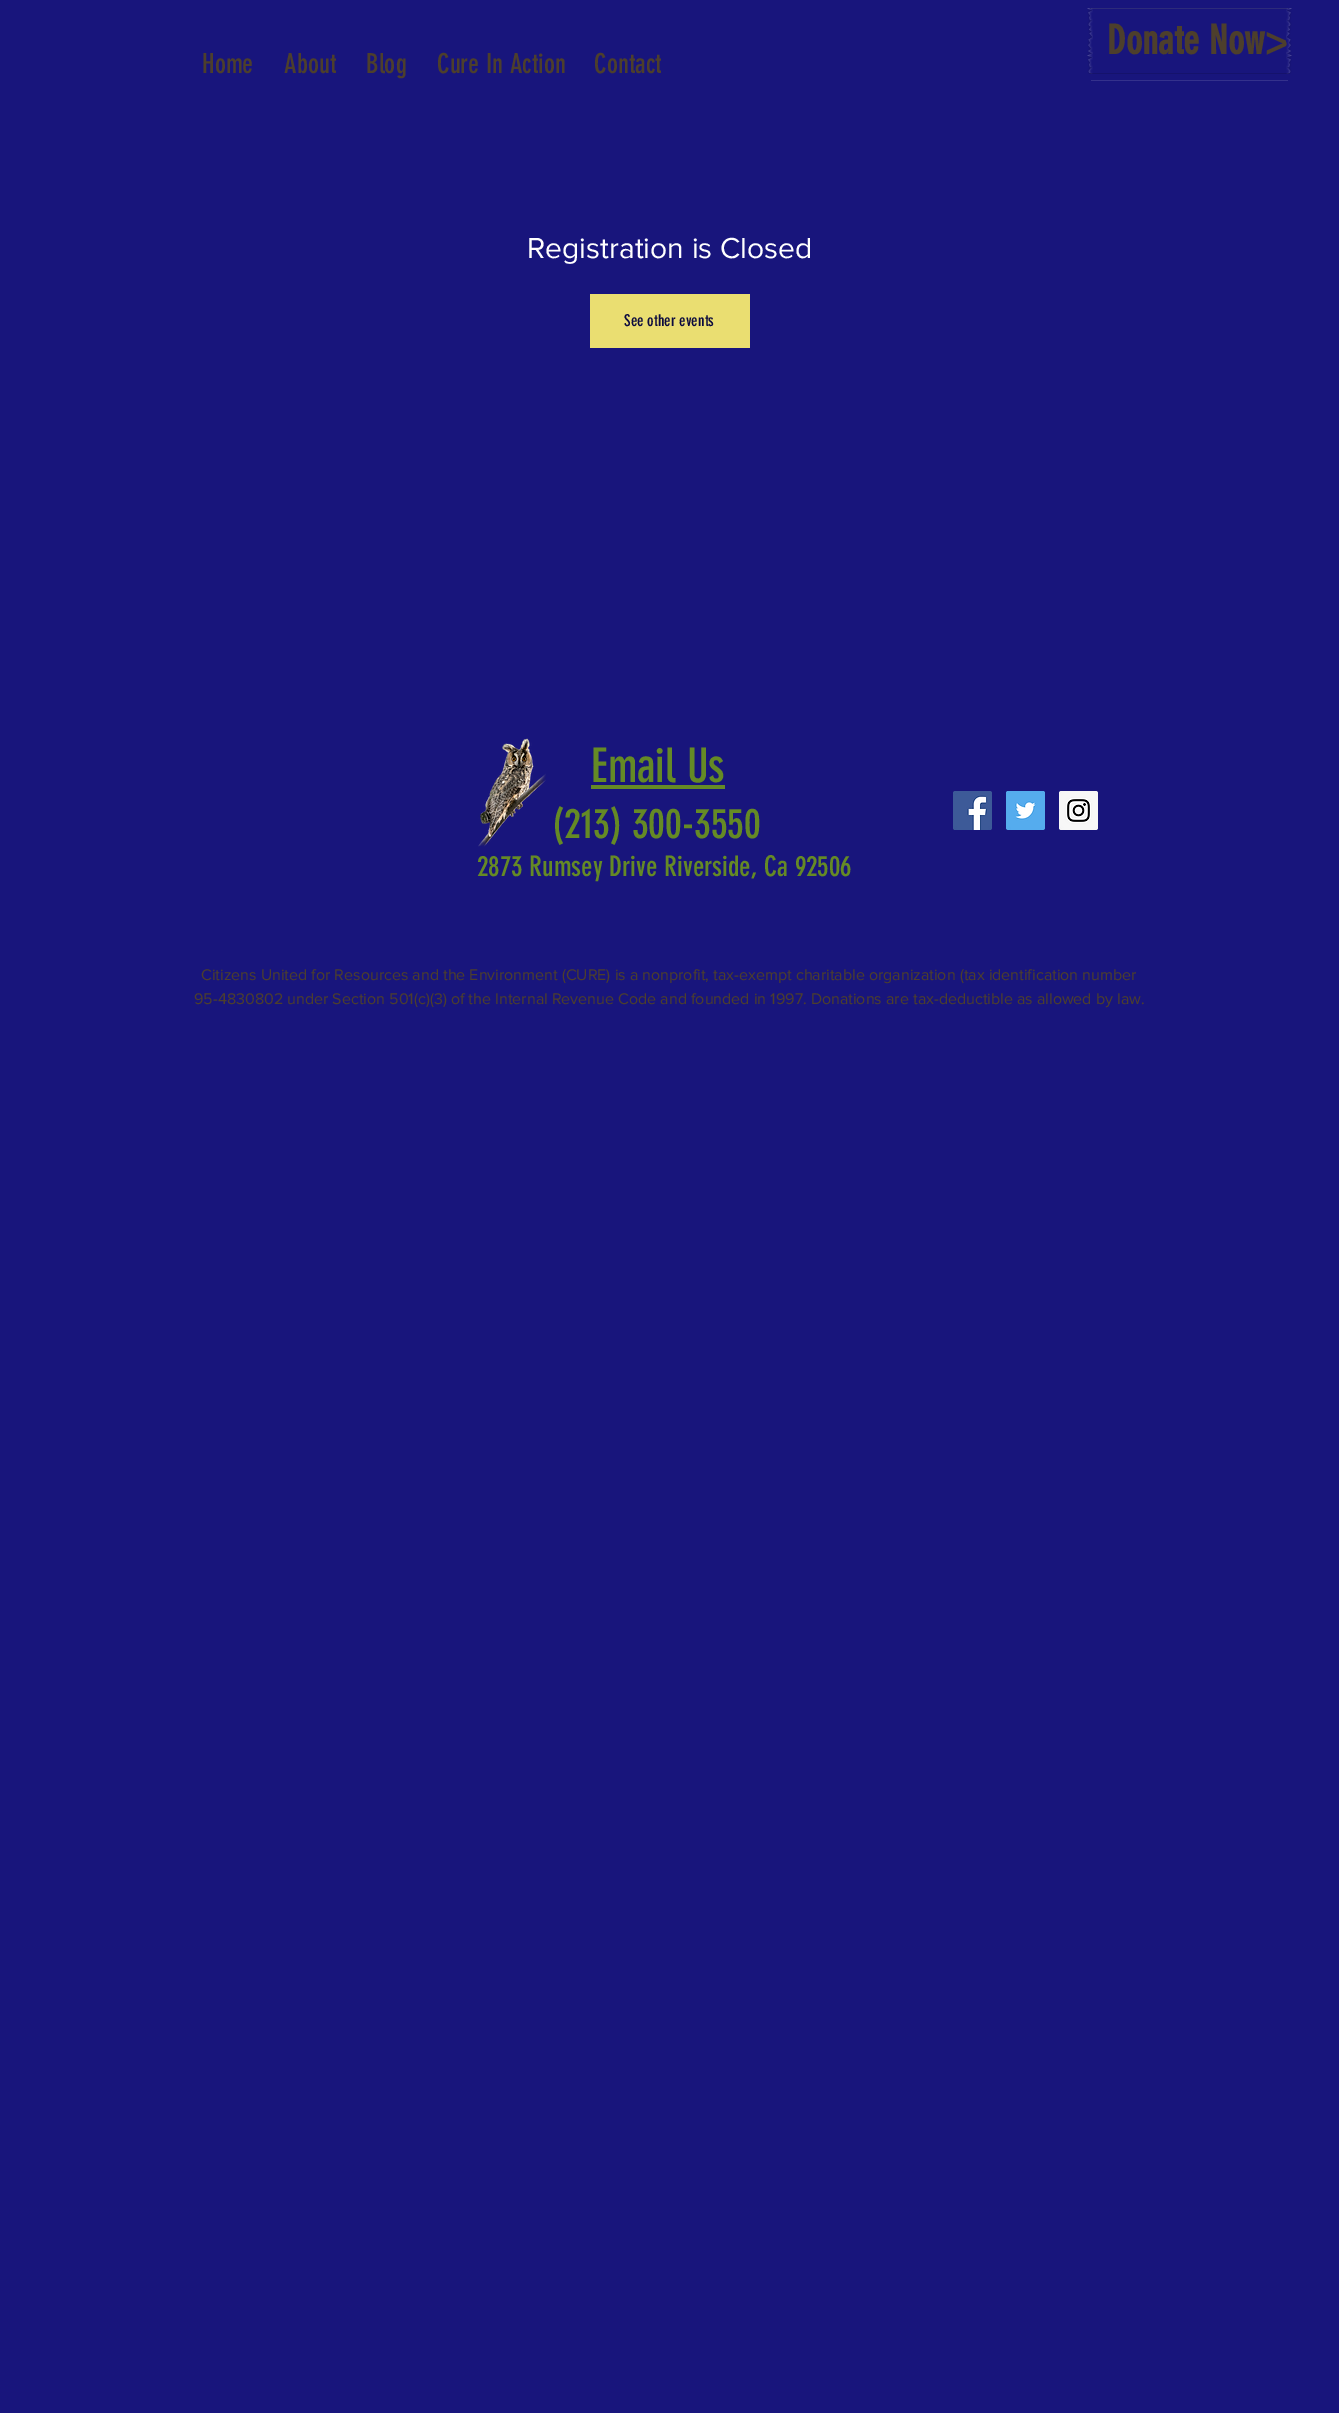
%!PS
<< /PageSize [1339 2413] /PageUsesTransparency true >> setpagedevice
/rgb { 3 { 255 div 3 1 roll } repeat setrgbcolor } def
/font { [ exch dup neg 0 0 3 -1 roll 0 0 ] selectfont } def
/alpha { dup .setfillconstantalpha .setstrokeconstantalpha } def
/picture { 5 dict begin { /h /w /y /x /name } { exch def } forall
  gsave x y translate w h scale
  w h 8 [w 0 0 h 0 0] name (r) file false 3 colorimage grestore end } def
0 .pushpdf14devicefilter
0 2413 translate 1 -1 scale
4 setmiterlimit
24 21 124 rgb
0 0 1339 2413 rectfill
52 49 140 rgb
1091 8 197 1 rectfill
(img/1.rgb) 1087 8 6 66 picture
0.13 alpha
[
  [1090 8 199 1 0 0 0]
  [1090 73 199 1 0 0 0]
] { aload pop rgb rectfill } forall
1 alpha
[
  [1091 80 197 1 52 49 140]
  [590 294 160 54 234 222 113]
] { aload pop rgb rectfill } forall
(img/3.rgb) 478 738 68 109 picture
101 138 37 rgb
591 785 134 4 rectfill
(img/4.rgb) 953 791 39 39 picture
(img/5.rgb) 1006 791 39 39 picture
(img/6.rgb) 1059 791 39 39 picture
/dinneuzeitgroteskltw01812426-Bold 40 font
77 63 44 rgb
1107 54 moveto (Donate Now>) show
(img/2.rgb) 1286 8 6 66 picture
/dinneuzeitgroteskltw01812426-Regular 27 font
[
  [(Home) 202 73]
  [(About) 284 73]
  [(Blog) 366 73]
  [(Cure In Action) 437 73]
  [(Contact) 594 73]
] { aload pop moveto show } forall
/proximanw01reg-Regular 30 font
255 255 255 rgb
527 258 moveto (Registration is Closed) show
/dinneuzeitgroteskltw01812426-Regular 16 font
12 11 62 rgb
624 326 moveto (See other events) show
/dinneuzeitgroteskltw01812426-Regular 47 font
101 138 37 rgb
591 782 moveto (Email Us) show
/dinneuzeitgroteskltw01812426-Regular 41 font
552 838 moveto (\(213\) 300-3550) show
/dinneuzeitgroteskltw01812426-Regular 28 font
477 876 moveto (2873 Rumsey Drive Riverside, Ca 92506) show
/proximanw01reg-Regular 16 font
77 63 44 rgb
201 980 moveto (Citizens United for Resources and the Environment \(CURE\) is a nonprofit, tax-exempt charitable organization \(tax identification number) show
194 1004 moveto (95-4830802 under Section 501\(c\)\(3\) of the Internal Revenue Code and founded in 1997. Donations are tax-deductible as allowed by law.) show
.poppdf14devicefilter showpage
